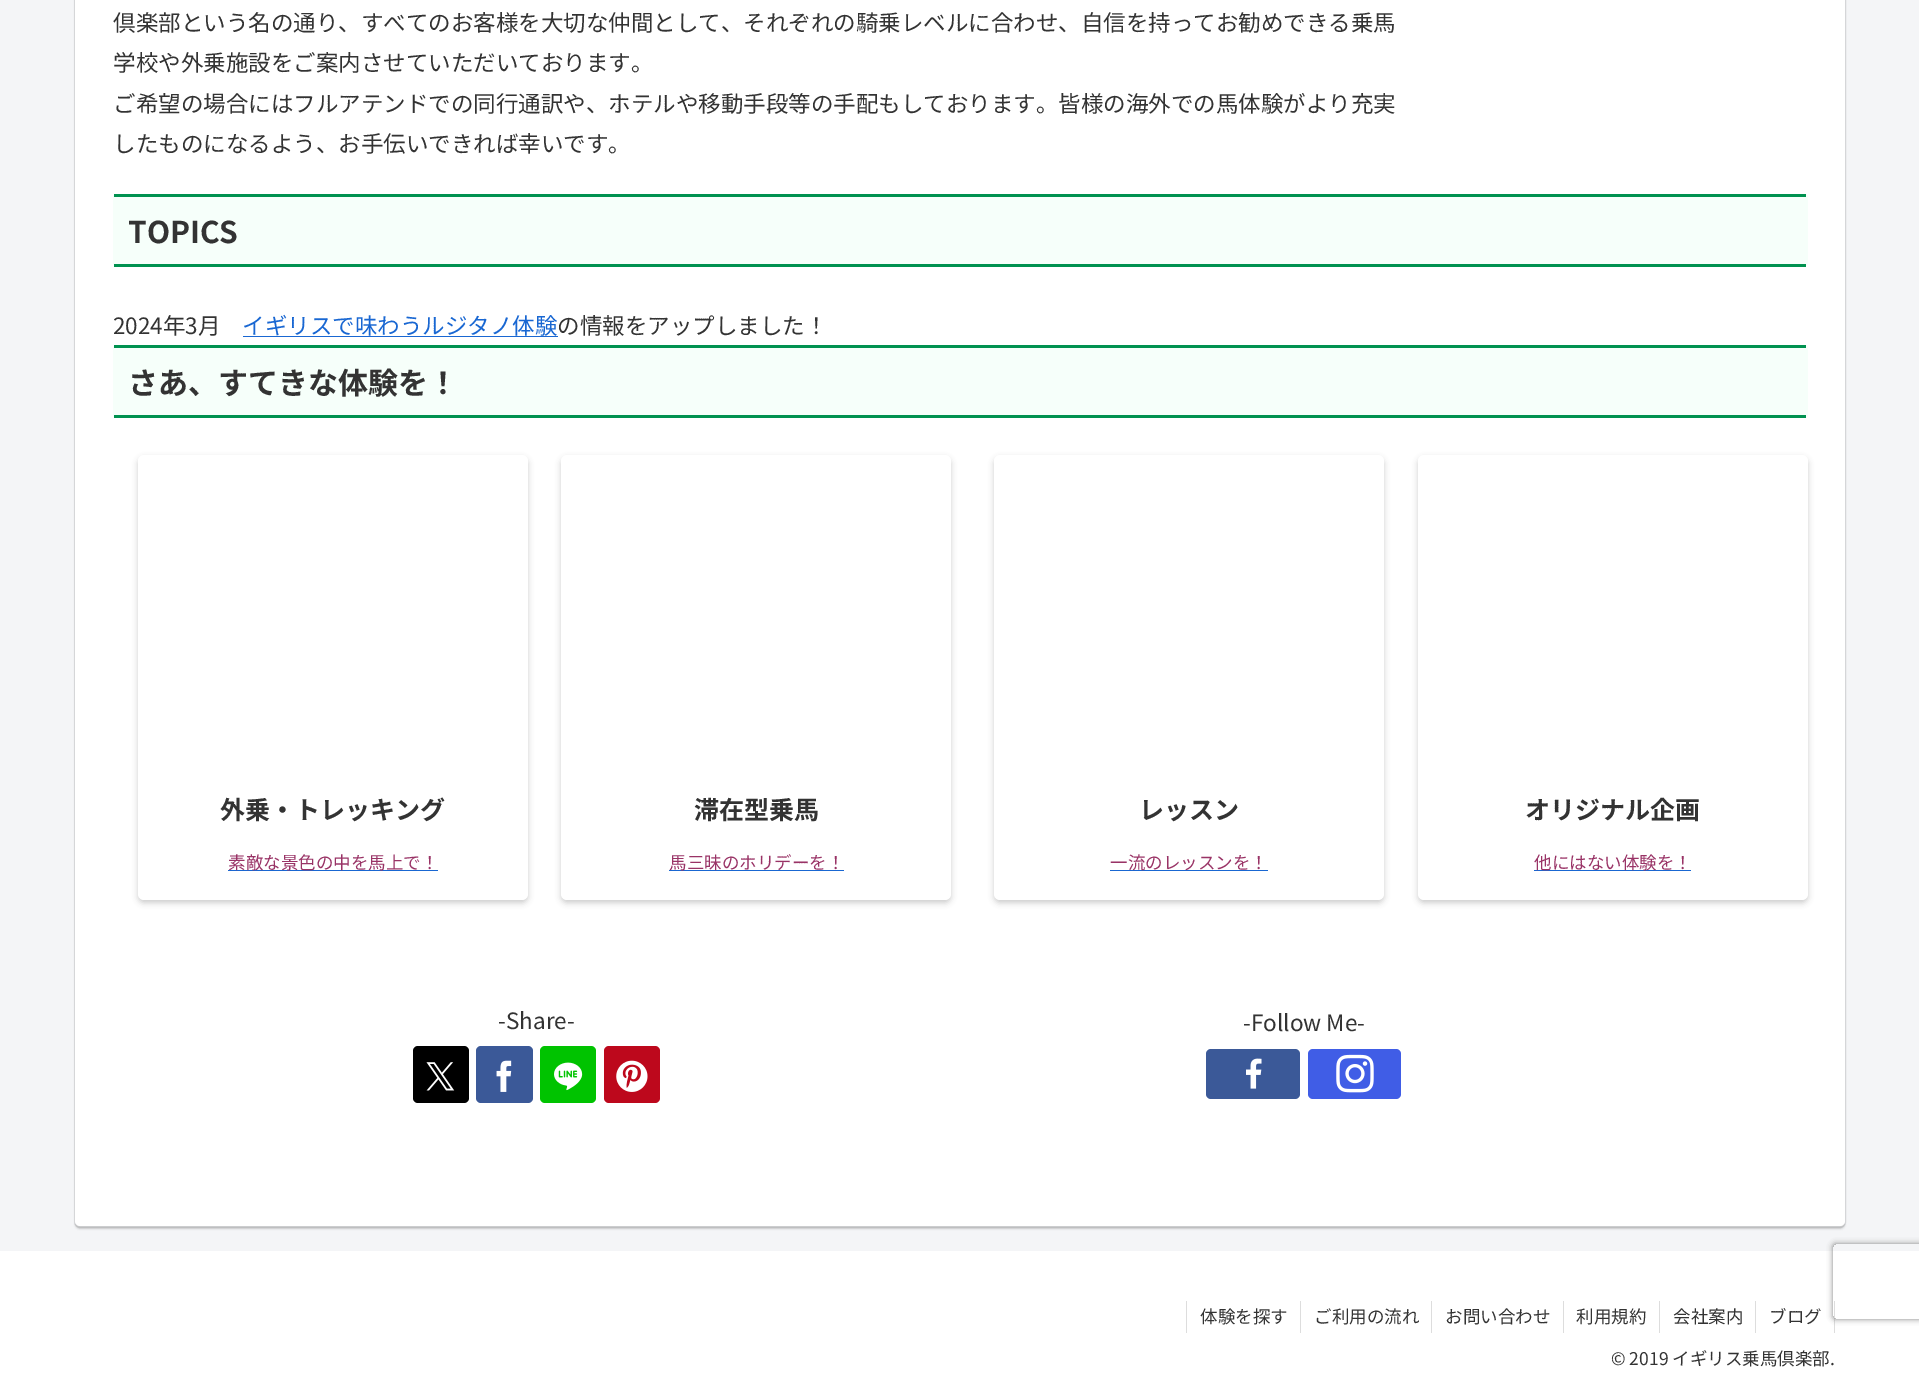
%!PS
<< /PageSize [1919 1393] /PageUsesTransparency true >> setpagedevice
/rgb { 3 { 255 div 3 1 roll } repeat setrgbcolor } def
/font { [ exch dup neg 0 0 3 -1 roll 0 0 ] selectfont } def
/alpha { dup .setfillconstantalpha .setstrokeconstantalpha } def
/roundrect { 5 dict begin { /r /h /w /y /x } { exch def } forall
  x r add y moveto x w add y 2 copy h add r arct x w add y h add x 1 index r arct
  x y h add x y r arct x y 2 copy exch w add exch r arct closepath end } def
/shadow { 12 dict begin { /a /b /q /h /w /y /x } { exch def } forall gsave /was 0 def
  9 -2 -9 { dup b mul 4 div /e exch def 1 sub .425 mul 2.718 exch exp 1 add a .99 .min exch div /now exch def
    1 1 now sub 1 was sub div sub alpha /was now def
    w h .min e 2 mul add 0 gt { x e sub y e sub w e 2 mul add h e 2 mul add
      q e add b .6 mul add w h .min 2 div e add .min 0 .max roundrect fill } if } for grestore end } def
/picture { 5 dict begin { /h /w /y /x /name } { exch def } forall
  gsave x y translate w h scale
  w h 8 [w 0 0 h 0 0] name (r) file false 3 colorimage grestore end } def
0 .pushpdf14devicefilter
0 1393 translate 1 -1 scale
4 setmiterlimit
244 245 247 rgb
0 0 1919 1393 rectfill
224 225 227 rgb
74.5 -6.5 1771 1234 5.5 roundrect stroke
0 0 0 rgb
75 -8 1770 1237 5 1 0.16 shadow
255 255 255 rgb
75 -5 1770 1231 5 roundrect fill
246 255 250 rgb
113 194 1695 72 2.5 roundrect fill
[
  [114 194 1692 3 0 146 80]
  [114 264 1692 3 0 146 80]
  [243 336 315 1 25 103 210]
] { aload pop rgb rectfill } forall
246 255 250 rgb
113 345 1695 73 2.5 roundrect fill
0 146 80 rgb
114 345 1692 3 rectfill
114 415 1692 3 rectfill
204 204 204 rgb
138 458 390 445 6 3 1 shadow
255 255 255 rgb
138 455 390 445 6 roundrect fill
25 103 210 rgb
228 870 210 1 rectfill
204 204 204 rgb
561 458 390 445 6 3 1 shadow
255 255 255 rgb
561 455 390 445 6 roundrect fill
25 103 210 rgb
669 870 175 1 rectfill
204 204 204 rgb
994 458 390 445 6 3 1 shadow
255 255 255 rgb
994 455 390 445 6 roundrect fill
25 103 210 rgb
1110 870 158 1 rectfill
204 204 204 rgb
1418 458 390 445 6 3 1 shadow
255 255 255 rgb
1418 455 390 445 6 roundrect fill
25 103 210 rgb
1534 870 157 1 rectfill
0 0 0 rgb
413 1046 56 57 5 roundrect fill
(img/1.rgb) 426 1062 29 29 picture
59 89 152 rgb
476 1046 57 57 5 roundrect fill
(img/2.rgb) 496 1060 16 32 picture
0 195 0 rgb
540 1046 56 57 5 roundrect fill
(img/3.rgb) 554 1062 29 29 picture
189 8 28 rgb
604 1046 56 57 5 roundrect fill
(img/4.rgb) 616 1060 32 32 picture
59 89 152 rgb
1206 1049 94 50 5 roundrect fill
(img/5.rgb) 1246 1058 16 31 picture
64 93 230 rgb
1308 1049 93 50 5 roundrect fill
(img/6.rgb) 1336 1054 38 39 picture
[
  [0 1251 1919 142 255 255 255]
  [1186 1301 1 32 221 221 221]
  [1300 1301 1 32 221 221 221]
  [1431 1301 1 32 221 221 221]
  [1563 1301 1 32 221 221 221]
  [1659 1301 1 32 221 221 221]
  [1834 1301 1 32 221 221 221]
  [1755 1301 1 32 221 221 221]
] { aload pop rgb rectfill } forall
gsave
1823 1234 moveto 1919 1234 lineto 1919 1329 lineto 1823 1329 lineto closepath 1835.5 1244 moveto 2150.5 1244 lineto 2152 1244 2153 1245 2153 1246.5 curveto 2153 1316.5 lineto 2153 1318 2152 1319 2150.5 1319 curveto 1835.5 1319 lineto 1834 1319 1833 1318 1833 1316.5 curveto 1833 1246.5 lineto 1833 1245 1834 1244 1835.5 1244 curveto closepath eoclip newpath
128 128 128 rgb
1833 1244 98 75 2.5 3 1 shadow
grestore
/NotoSansJP-Regular 22.5 font
51 51 51 rgb
[
  [(倶楽部という名の通り、すべてのお客様を大切な仲間として、それぞれの騎乗レベルに合わせ、自信を持ってお勧めできる乗馬) 113 31]
  [(学校や外乗施設をご案内させていただいております。) 113 71]
  [(ご希望の場合にはフルアテンドでの同行通訳や、ホテルや移動手段等の手配もしております。皆様の海外での馬体験がより充実) 113 112]
  [(したものになるよう、お手伝いできれば幸いです。) 113 152]
] { aload pop moveto show } forall
/NotoSansJP-Bold 30 font
128 243 moveto (TOPICS) show
/NotoSansJP-Regular 22.5 font
113 334 moveto (2024年3月) show
25 103 210 rgb
242 334 moveto (イギリスで味わうルジタノ体験) show
51 51 51 rgb
557 334 moveto (の情報をアップしました！) show
/NotoSansJP-Bold 30 font
128 394 moveto (さあ、すてきな体験を！) show
/NotoSansJP-Bold 25 font
220 819 moveto (外乗・トレッキング) show
/NotoSansJP-Regular 17.5 font
153 51 102 rgb
228 869 moveto (素敵な景色の中を馬上で！) show
/NotoSansJP-Bold 25 font
51 51 51 rgb
694 819 moveto (滞在型乗馬) show
/NotoSansJP-Regular 17.5 font
153 51 102 rgb
669 869 moveto (馬三昧のホリデーを！) show
/NotoSansJP-Bold 25 font
51 51 51 rgb
1139 819 moveto (レッスン) show
/NotoSansJP-Regular 17.5 font
153 51 102 rgb
1110 869 moveto (一流のレッスンを！) show
/NotoSansJP-Bold 25 font
51 51 51 rgb
1525 819 moveto (オリジナル企画) show
/NotoSansJP-Regular 17.5 font
153 51 102 rgb
1534 869 moveto (他にはない体験を！) show
/NotoSansJP-Regular 22.5 font
51 51 51 rgb
498 1029 moveto (-Share-) show
1243 1031 moveto (-Follow Me-) show
/NotoSansJP-Regular 17.5 font
[
  [(体験を探す) 1200 1323]
  [(ご利用の流れ) 1314 1323]
  [(お問い合わせ) 1445 1323]
  [(利用規約) 1576 1323]
  [(会社案内) 1673 1323]
  [(ブログ) 1769 1323]
  [(© 2019 イギリス乗馬倶楽部.) 1611 1365]
] { aload pop moveto show } forall
.poppdf14devicefilter showpage
